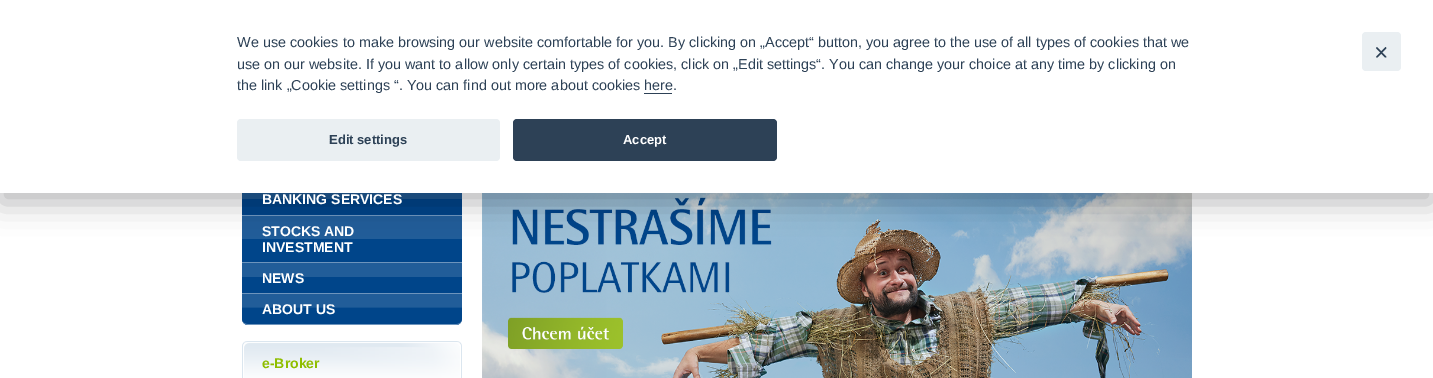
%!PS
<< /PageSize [1433 378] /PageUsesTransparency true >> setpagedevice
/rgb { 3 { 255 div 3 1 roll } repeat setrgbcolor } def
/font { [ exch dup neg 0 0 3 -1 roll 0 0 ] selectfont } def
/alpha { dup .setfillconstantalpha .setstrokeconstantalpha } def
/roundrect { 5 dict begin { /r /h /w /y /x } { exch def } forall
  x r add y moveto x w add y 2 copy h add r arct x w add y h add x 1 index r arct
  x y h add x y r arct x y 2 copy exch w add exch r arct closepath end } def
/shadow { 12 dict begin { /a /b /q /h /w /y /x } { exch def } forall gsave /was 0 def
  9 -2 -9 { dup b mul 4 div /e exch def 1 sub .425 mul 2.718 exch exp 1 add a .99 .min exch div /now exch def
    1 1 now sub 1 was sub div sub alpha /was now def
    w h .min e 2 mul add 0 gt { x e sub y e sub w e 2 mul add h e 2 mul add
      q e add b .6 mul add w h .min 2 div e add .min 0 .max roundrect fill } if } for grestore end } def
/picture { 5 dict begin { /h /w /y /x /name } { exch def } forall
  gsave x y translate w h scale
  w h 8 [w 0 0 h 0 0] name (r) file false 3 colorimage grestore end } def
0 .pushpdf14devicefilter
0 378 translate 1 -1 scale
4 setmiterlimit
255 255 255 rgb
0 0 1433 378 rectfill
[
  [242 193 220 6 33 93 153]
  [242 199 220 16 0 69 138]
  [242 215 220 1 109 148 188]
  [242 216 220 23 33 93 153]
  [242 239 220 23 0 69 138]
] { aload pop rgb rectfill } forall
(img/3.rgb) 482 193 710 185 picture
2 2 3 rgb
0 10 1433 193 0 15 0.28 shadow
255 255 255 rgb
0 0 1433 193 rectfill
45 65 86 rgb
644 93 28 1 rectfill
234 239 242 rgb
237 119 263 42 4 roundrect fill
45 65 86 rgb
513 119 264 42 4 roundrect fill
234 239 242 rgb
1362 32 39 39 4 roundrect fill
45 65 86 rgb
1386 47.5 moveto 1386.5 48 1386.5 48.5 1386 48.5 curveto 1377.5 57.5 lineto 1377 57.5 1376.5 57.5 1376.5 57.5 curveto 1376 57 1376 56.5 1376.5 56.5 curveto 1385 47.5 lineto 1385.5 47 1386 47 1386 47.5 curveto closepath fill
1376.5 47.5 moveto 1376.5 47 1377 47 1377.5 47.5 curveto 1386 56.5 lineto 1386.5 56.5 1386.5 57 1386 57.5 curveto 1386 57.5 1385.5 57.5 1385 57.5 curveto 1376.5 48.5 lineto 1376 48.5 1376 48 1376.5 47.5 curveto closepath fill
[
  [242 262 220 1 109 148 188]
  [242 263 220 14 33 93 153]
  [242 277 220 16 0 69 138]
  [242 293 220 1 109 148 188]
  [242 294 220 13 33 93 153]
] { aload pop rgb rectfill } forall
(img/1.rgb) 242 307 220 18 picture
(img/2.rgb) 242 341 220 37 picture
/LiberationSans-Regular 14.4 font
45 65 86 rgb
[
  [(We use cookies to make browsing our website comfortable for you. By clicking on „Accept“ button, you agree to the use of all types of cookies that we) 237 47]
  [(use on our website. If you want to allow only certain types of cookies, click on „Edit settings“. You can change your choice at any time by clicking on) 237 69]
  [(the link „Cookie settings “. You can find out more about cookies here.) 237 90]
] { aload pop moveto show } forall
/LiberationSans-Bold 13 font
329 144 moveto (Edit settings) show
255 255 255 rgb
623 144 moveto (Accept) show
/LiberationSans-Bold 14 font
[
  [(BANKING SERVICES) 262 204]
  [(STOCKS AND) 262 236]
  [(INVESTMENT) 262 252]
  [(NEWS) 262 283]
  [(ABOUT US) 262 314]
] { aload pop moveto show } forall
143 190 0 rgb
262 368 moveto (e-Broker) show
.poppdf14devicefilter showpage
